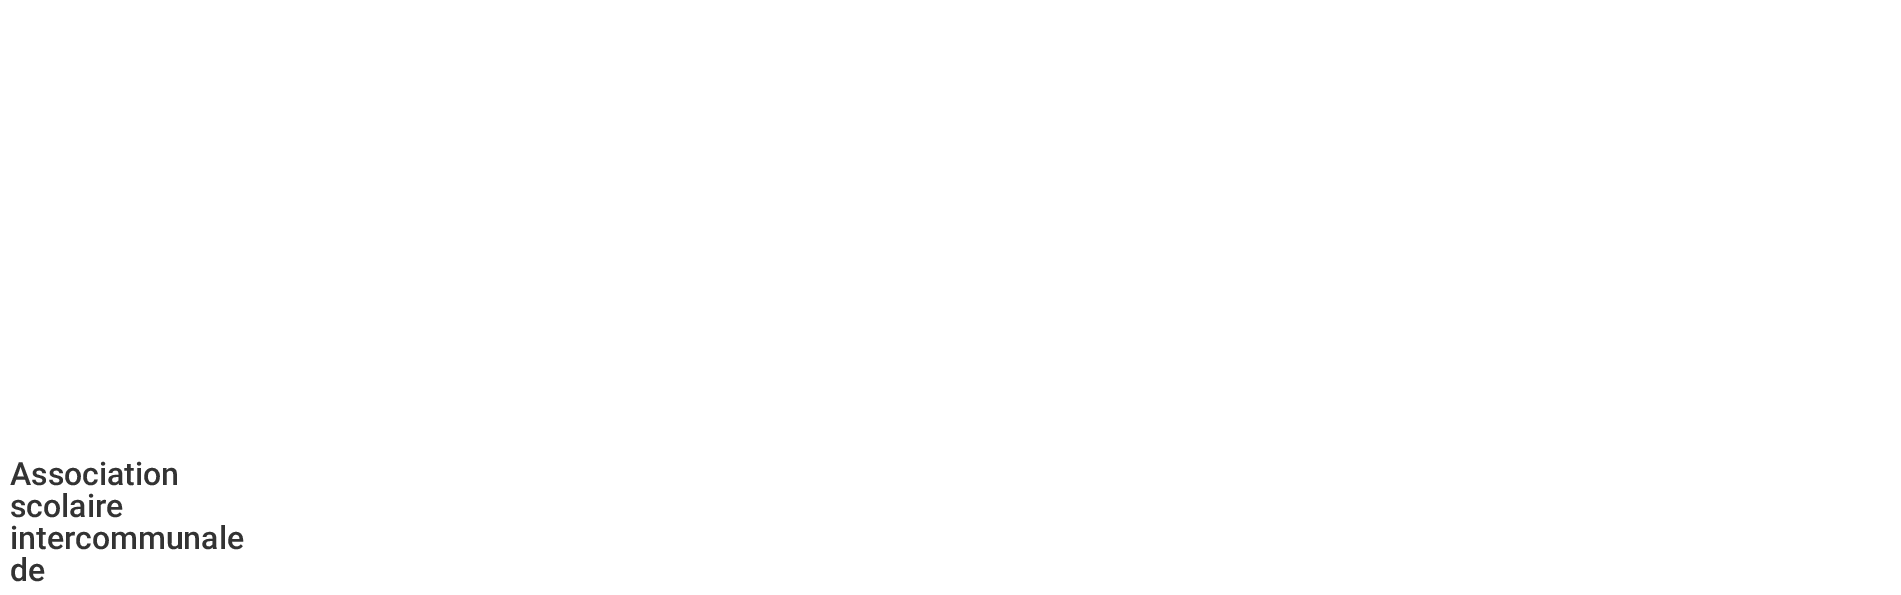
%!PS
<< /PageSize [1901 595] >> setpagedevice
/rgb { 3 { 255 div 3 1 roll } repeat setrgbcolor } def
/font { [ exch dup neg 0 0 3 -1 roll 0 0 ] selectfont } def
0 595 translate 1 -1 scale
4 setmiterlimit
255 255 255 rgb
0 0 1901 595 rectfill
/Roboto-Medium 32 font
51 51 51 rgb
[
  [(Association) 10 485]
  [(scolaire) 10 517]
  [(intercommunale) 10 549]
  [(de) 10 581]
] { aload pop moveto show } forall
showpage
